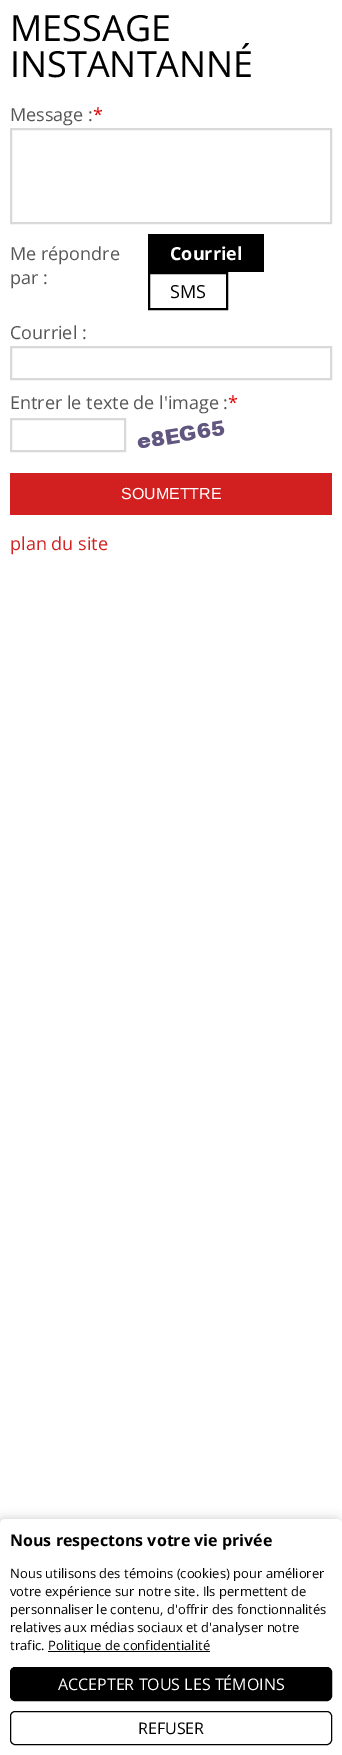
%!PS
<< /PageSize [342 1755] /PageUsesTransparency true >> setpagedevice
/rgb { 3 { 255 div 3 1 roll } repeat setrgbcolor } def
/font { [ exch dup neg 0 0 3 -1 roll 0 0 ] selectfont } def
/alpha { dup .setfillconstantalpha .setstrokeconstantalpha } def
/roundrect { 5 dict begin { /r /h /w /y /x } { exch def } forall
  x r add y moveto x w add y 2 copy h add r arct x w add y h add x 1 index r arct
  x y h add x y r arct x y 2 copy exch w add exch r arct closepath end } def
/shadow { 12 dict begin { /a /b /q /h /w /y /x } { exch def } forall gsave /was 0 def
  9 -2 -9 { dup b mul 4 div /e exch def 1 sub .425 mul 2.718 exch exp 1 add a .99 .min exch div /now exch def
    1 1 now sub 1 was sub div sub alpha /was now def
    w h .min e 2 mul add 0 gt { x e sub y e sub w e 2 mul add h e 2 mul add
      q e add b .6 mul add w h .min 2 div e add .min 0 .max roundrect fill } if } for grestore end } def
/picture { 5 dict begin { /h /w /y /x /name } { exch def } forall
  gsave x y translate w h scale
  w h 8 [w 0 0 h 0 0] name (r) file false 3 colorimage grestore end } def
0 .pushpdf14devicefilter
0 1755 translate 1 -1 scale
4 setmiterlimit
255 255 255 rgb
0 0 342 1755 rectfill
217 217 217 rgb
2 setlinewidth
11 129 320 94 rectstroke
0 0 0 rgb
148 234 116 38 rectfill
149 273 78 36 rectstroke
217 217 217 rgb
11 347 320 32 rectstroke
11 419 114 32 rectstroke
(img/1.rgb) 137 420 88 28 picture
209 32 31 rgb
10 473 322 42 rectfill
gsave
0 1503 moveto 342 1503 lineto 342 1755 lineto 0 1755 lineto closepath 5 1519 moveto 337 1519 lineto 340 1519 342 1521 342 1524 curveto 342 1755 lineto 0 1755 lineto 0 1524 lineto 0 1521 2 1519 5 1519 curveto closepath eoclip newpath
0 0 0 rgb
-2 1519 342 236 5 5 0.2 shadow
grestore
0.9 alpha
255 255 255 rgb
5 1519 moveto 337 1519 lineto 340 1519 342 1521 342 1524 curveto 342 1755 lineto 0 1755 lineto 0 1524 lineto 0 1521 2 1519 5 1519 curveto closepath fill
1 alpha
0 0 0 rgb
48 1651 162 1 rectfill
10.5 1667.5 321 33 4.5 roundrect gsave fill grestore
1 setlinewidth
stroke
10.5 1711.5 321 33 4.5 roundrect stroke
/OpenSans-Regular 36 font
10 41 moveto (MESSAGE) show
10 77 moveto (INSTANTANNÉ) show
/OpenSans-Regular 18 font
86 86 86 rgb
10 121 moveto (Message :) show
221 0 0 rgb
93 121 moveto (*) show
86 86 86 rgb
10 260 moveto (Me répondre) show
10 284 moveto (par :) show
/OpenSans-Bold 18 font
255 255 255 rgb
170 260 moveto (Courriel) show
/OpenSans-Regular 18 font
0 0 0 rgb
170 298 moveto (SMS) show
86 86 86 rgb
10 339 moveto (Courriel :) show
10 409 moveto (Entrer le texte de l'image :) show
221 0 0 rgb
228 409 moveto (*) show
/LiberationSans-Regular 16 font
255 255 255 rgb
121 499 moveto (SOUMETTRE) show
/OpenSans-Regular 18 font
209 32 31 rgb
10 550 moveto (plan du site) show
/OpenSans-Bold 16 font
0 0 0 rgb
10 1546 moveto (Nous respectons votre vie privée) show
/OpenSans-Regular 13 font
[
  [(Nous utilisons des témoins \(cookies\) pour améliorer) 10 1578]
  [(votre expérience sur notre site. Ils permettent de) 10 1596]
  [(personnaliser le contenu, d'offrir des fonctionnalités) 10 1614]
  [(relatives aux médias sociaux et d'analyser notre) 10 1632]
  [(trafic.) 10 1650]
  [(Politique de confidentialité) 48 1650]
] { aload pop moveto show } forall
/OpenSans-Regular 16 font
255 255 255 rgb
58 1690 moveto (ACCEPTER TOUS LES TÉMOINS) show
0 0 0 rgb
138 1734 moveto (REFUSER) show
.poppdf14devicefilter showpage
